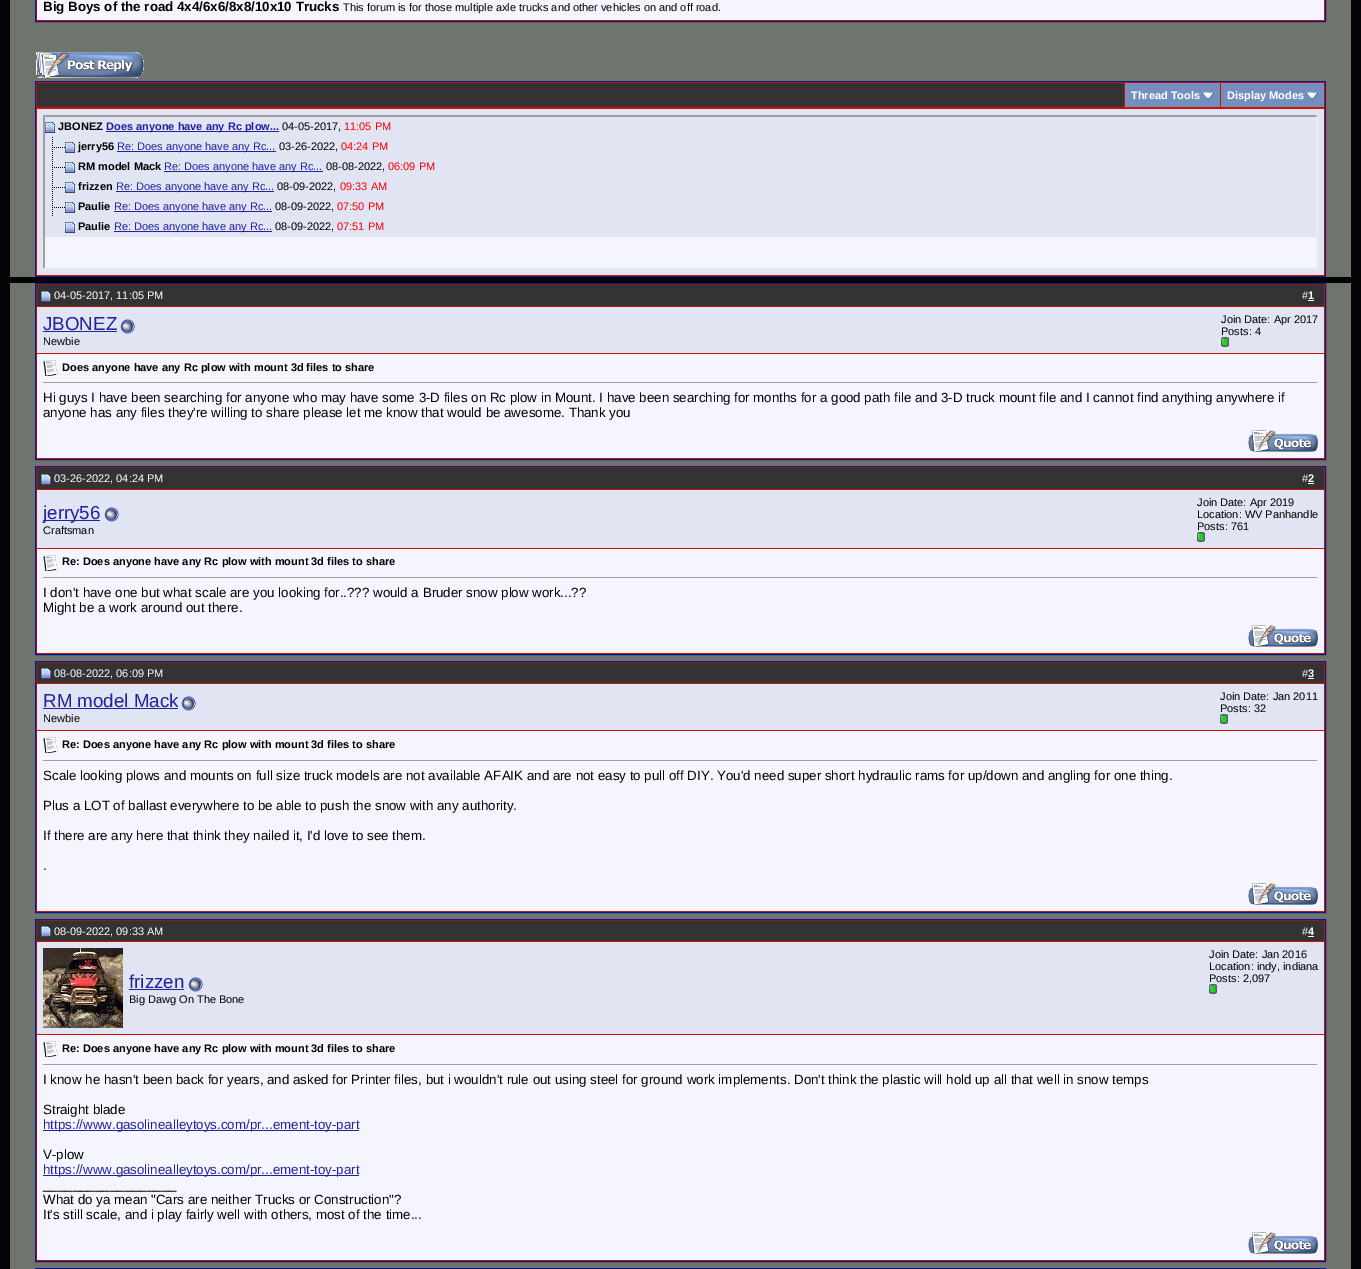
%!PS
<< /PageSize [1361 1269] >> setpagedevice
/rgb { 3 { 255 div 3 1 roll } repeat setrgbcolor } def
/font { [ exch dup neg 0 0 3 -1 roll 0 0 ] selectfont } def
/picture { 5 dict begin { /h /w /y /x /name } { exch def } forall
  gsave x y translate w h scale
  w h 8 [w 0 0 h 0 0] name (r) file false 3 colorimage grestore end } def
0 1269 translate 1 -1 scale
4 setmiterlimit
4 4 6 rgb
0 0 1361 1269 rectfill
109 117 109 rgb
10 0 1341 277 rectfill
204 17 0 rgb
35.5 -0.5 moveto 1325.5 -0.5 lineto 1325.5 21.5 lineto 35.5 21.5 lineto closepath gsave fill grestore
11 25 140 rgb
stroke
245 245 255 rgb
37 0 1287 20 rectfill
(img/1.rgb) 36 52 108 26 picture
[
  [36 82 1289 194 204 17 0]
  [35 81 1291 1 11 25 140]
  [1325 81 1 196 11 25 140]
  [35 81 1 27 11 25 140]
  [37 83 1087 24 51 51 51]
  [1125 83 95 24 115 143 191]
] { aload pop rgb rectfill } forall
(img/2.rgb) 1203 92 11 7 picture
1221 83 103 24 rectfill
(img/2.rgb) 1307 92 11 7 picture
[
  [35 276 1291 1 11 25 140]
  [35 108 1 169 11 25 140]
  [37 109 1287 166 225 228 242]
  [43 115 1275 154 245 245 255]
] { aload pop rgb rectfill } forall
159 159 159 rgb
43 115 moveto 1318 115 lineto 1316 117 lineto 45 117 lineto closepath fill
238 238 238 rgb
1318 115 moveto 1318 269 lineto 1316 267 lineto 1316 117 lineto closepath fill
1318 269 moveto 43 269 lineto 45 267 lineto 1316 267 lineto closepath fill
159 159 159 rgb
43 269 moveto 43 115 lineto 45 117 lineto 45 267 lineto closepath fill
225 228 242 rgb
45 117 1271 120 rectfill
(img/3.rgb) 45 122 10 11 picture
34 34 156 rgb
106 131 173 1 rectfill
(img/4.rgb) 52 137 13 19 picture
(img/3.rgb) 65 142 10 11 picture
117 151 159 1 rectfill
(img/4.rgb) 52 157 13 19 picture
(img/3.rgb) 65 162 10 11 picture
164 171 159 1 rectfill
(img/4.rgb) 52 177 13 19 picture
(img/3.rgb) 65 182 10 11 picture
116 191 158 1 rectfill
(img/4.rgb) 52 197 13 19 picture
(img/3.rgb) 65 202 10 11 picture
114 211 158 1 rectfill
(img/3.rgb) 65 222 10 11 picture
114 231 158 1 rectfill
109 117 109 rgb
10 283 1341 986 rectfill
204 17 0 rgb
35.5 283.5 moveto 1325.5 283.5 lineto 1325.5 459.5 lineto 35.5 459.5 lineto closepath gsave fill grestore
11 25 140 rgb
stroke
51 51 51 rgb
37 285 1287 21 rectfill
(img/5.rgb) 41 291 10 11 picture
[
  [1308 300 6 1 255 255 255]
  [37 307 1287 46 225 228 242]
  [43 331 74 1 34 34 156]
] { aload pop rgb rectfill } forall
(img/6.rgb) 120 319 15 15 picture
(img/7.rgb) 1221 337 8 10 picture
245 245 255 rgb
37 354 1287 104 rectfill
(img/8.rgb) 43 360 15 16 picture
159 159 159 rgb
43 382 1275 1 rectfill
238 238 238 rgb
1317 382 1 1 rectfill
(img/9.rgb) 1248 430 70 22 picture
204 17 0 rgb
35.5 466.5 moveto 1325.5 466.5 lineto 1325.5 654.5 lineto 35.5 654.5 lineto closepath gsave fill grestore
11 25 140 rgb
stroke
51 51 51 rgb
37 468 1287 21 rectfill
(img/5.rgb) 41 474 10 11 picture
[
  [1308 483 6 1 255 255 255]
  [37 490 1287 58 225 228 242]
  [43 520 57 1 34 34 156]
] { aload pop rgb rectfill } forall
(img/6.rgb) 104 507 15 15 picture
(img/7.rgb) 1197 532 8 10 picture
245 245 255 rgb
37 549 1287 104 rectfill
(img/8.rgb) 43 555 15 16 picture
159 159 159 rgb
43 577 1275 1 rectfill
238 238 238 rgb
1317 577 1 1 rectfill
(img/9.rgb) 1248 625 70 22 picture
204 17 0 rgb
35.5 661.5 moveto 1325.5 661.5 lineto 1325.5 912.5 lineto 35.5 912.5 lineto closepath gsave fill grestore
11 25 140 rgb
stroke
51 51 51 rgb
37 663 1287 20 rectfill
(img/5.rgb) 41 668 10 11 picture
[
  [1308 678 6 1 255 255 255]
  [37 684 1287 46 225 228 242]
  [43 708 135 1 34 34 156]
] { aload pop rgb rectfill } forall
(img/6.rgb) 181 696 15 15 picture
(img/7.rgb) 1220 714 8 10 picture
245 245 255 rgb
37 731 1287 180 rectfill
(img/8.rgb) 43 737 15 16 picture
159 159 159 rgb
43 760 1275 1 rectfill
238 238 238 rgb
1317 760 1 1 rectfill
(img/9.rgb) 1248 883 70 22 picture
204 17 0 rgb
35.5 919.5 moveto 1325.5 919.5 lineto 1325.5 1261.5 lineto 35.5 1261.5 lineto closepath gsave fill grestore
11 25 140 rgb
stroke
51 51 51 rgb
37 921 1287 20 rectfill
(img/5.rgb) 41 926 10 11 picture
255 255 255 rgb
1308 936 6 1 rectfill
225 228 242 rgb
37 942 1287 92 rectfill
(img/10.rgb) 43 948 80 80 picture
(img/7.rgb) 1209 984 8 10 picture
34 34 156 rgb
129 989 55 1 rectfill
(img/6.rgb) 188 977 15 15 picture
245 245 255 rgb
37 1035 1287 225 rectfill
(img/8.rgb) 43 1041 15 16 picture
[
  [43 1064 1275 1 159 159 159]
  [1317 1064 1 1 238 238 238]
  [43 1130 316 1 34 34 156]
  [43 1175 316 1 34 34 156]
] { aload pop rgb rectfill } forall
(img/9.rgb) 1248 1232 70 22 picture
11 25 140 rgb
35.5 1268.5 1290 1 rectstroke
/LiberationSans-Bold 13.33 font
0 0 0 rgb
43 11 moveto (Big Boys of the road 4x4/6x6/8x8/10x10 Trucks) show
/LiberationSans-Regular 11 font
343 11 moveto (This forum is for those multiple axle trucks and other vehicles on and off road.) show
/LiberationSans-Bold 11 font
255 255 255 rgb
1131 99 moveto (Thread Tools) show
1227 99 moveto (Display Modes) show
0 0 0 rgb
58 130 moveto (JBONEZ) show
34 34 156 rgb
106 130 moveto (Does anyone have any Rc plow...) show
/LiberationSans-Regular 11 font
0 0 0 rgb
282 130 moveto (04-05-2017,) show
255 0 0 rgb
344 130 moveto (11:05 PM) show
/LiberationSans-Bold 11 font
0 0 0 rgb
78 150 moveto (jerry56) show
/LiberationSans-Regular 11 font
34 34 156 rgb
117 150 moveto (Re: Does anyone have any Rc...) show
0 0 0 rgb
279 150 moveto (03-26-2022,) show
255 0 0 rgb
341 150 moveto (04:24 PM) show
/LiberationSans-Bold 11 font
0 0 0 rgb
78 170 moveto (RM model Mack) show
/LiberationSans-Regular 11 font
34 34 156 rgb
164 170 moveto (Re: Does anyone have any Rc...) show
0 0 0 rgb
326 170 moveto (08-08-2022,) show
255 0 0 rgb
388 170 moveto (06:09 PM) show
/LiberationSans-Bold 11 font
0 0 0 rgb
78 190 moveto (frizzen) show
/LiberationSans-Regular 11 font
34 34 156 rgb
116 190 moveto (Re: Does anyone have any Rc...) show
0 0 0 rgb
277 190 moveto (08-09-2022,) show
255 0 0 rgb
340 190 moveto (09:33 AM) show
/LiberationSans-Bold 11 font
0 0 0 rgb
78 210 moveto (Paulie) show
/LiberationSans-Regular 11 font
34 34 156 rgb
114 210 moveto (Re: Does anyone have any Rc...) show
0 0 0 rgb
275 210 moveto (08-09-2022,) show
255 0 0 rgb
337 210 moveto (07:50 PM) show
/LiberationSans-Bold 11 font
0 0 0 rgb
78 230 moveto (Paulie) show
/LiberationSans-Regular 11 font
34 34 156 rgb
114 230 moveto (Re: Does anyone have any Rc...) show
0 0 0 rgb
275 230 moveto (08-09-2022,) show
255 0 0 rgb
337 230 moveto (07:51 PM) show
255 255 255 rgb
54 299 moveto (04-05-2017, 11:05 PM) show
1302 299 moveto (#) show
/LiberationSans-Bold 11 font
1308 299 moveto (1) show
/LiberationSans-Regular 18.75 font
34 34 156 rgb
43 330 moveto (JBONEZ) show
/LiberationSans-Regular 11 font
0 0 0 rgb
[
  [(Newbie) 43 345]
  [(Join Date: Apr 2017) 1221 323]
  [(Posts: 4) 1221 335]
] { aload pop moveto show } forall
/LiberationSans-Bold 11 font
62 371 moveto (Does anyone have any Rc plow with mount 3d files to share) show
/LiberationSans-Regular 13.33 font
43 402 moveto (Hi guys I have been searching for anyone who may have some 3-D files on Rc plow in Mount. I have been searching for months for a good path file and 3-D truck mount file and I cannot find anything anywhere if) show
43 417 moveto (anyone has any files they're willing to share please let me know that would be awesome. Thank you) show
/LiberationSans-Regular 11 font
255 255 255 rgb
54 482 moveto (03-26-2022, 04:24 PM) show
1302 482 moveto (#) show
/LiberationSans-Bold 11 font
1308 482 moveto (2) show
/LiberationSans-Regular 18.75 font
34 34 156 rgb
43 519 moveto (jerry56) show
/LiberationSans-Regular 11 font
0 0 0 rgb
[
  [(Craftsman) 43 534]
  [(Join Date: Apr 2019) 1197 506]
  [(Location: WV Panhandle) 1197 518]
  [(Posts: 761) 1197 530]
] { aload pop moveto show } forall
/LiberationSans-Bold 11 font
62 565 moveto (Re: Does anyone have any Rc plow with mount 3d files to share) show
/LiberationSans-Regular 13.33 font
43 597 moveto (I don't have one but what scale are you looking for..??? would a Bruder snow plow work...??) show
43 612 moveto (Might be a work around out there.) show
/LiberationSans-Regular 11 font
255 255 255 rgb
54 677 moveto (08-08-2022, 06:09 PM) show
1302 677 moveto (#) show
/LiberationSans-Bold 11 font
1308 677 moveto (3) show
/LiberationSans-Regular 18.75 font
34 34 156 rgb
43 707 moveto (RM model Mack) show
/LiberationSans-Regular 11 font
0 0 0 rgb
[
  [(Newbie) 43 722]
  [(Join Date: Jan 2011) 1220 700]
  [(Posts: 32) 1220 712]
] { aload pop moveto show } forall
/LiberationSans-Bold 11 font
62 748 moveto (Re: Does anyone have any Rc plow with mount 3d files to share) show
/LiberationSans-Regular 13.33 font
[
  [(Scale looking plows and mounts on full size truck models are not available AFAIK and are not easy to pull off DIY. You'd need super short hydraulic rams for up/down and angling for one thing.) 43 780]
  [(Plus a LOT of ballast everywhere to be able to push the snow with any authority.) 43 810]
  [(If there are any here that think they nailed it, I'd love to see them.) 43 840]
  [(.) 43 870]
] { aload pop moveto show } forall
/LiberationSans-Regular 11 font
255 255 255 rgb
54 935 moveto (08-09-2022, 09:33 AM) show
1302 935 moveto (#) show
/LiberationSans-Bold 11 font
1308 935 moveto (4) show
/LiberationSans-Regular 11 font
0 0 0 rgb
[
  [(Join Date: Jan 2016) 1209 958]
  [(Location: indy, indiana) 1209 970]
  [(Posts: 2,097) 1209 982]
] { aload pop moveto show } forall
/LiberationSans-Regular 18.75 font
34 34 156 rgb
129 988 moveto (frizzen) show
/LiberationSans-Regular 11 font
0 0 0 rgb
129 1003 moveto (Big Dawg On The Bone) show
/LiberationSans-Bold 11 font
62 1052 moveto (Re: Does anyone have any Rc plow with mount 3d files to share) show
/LiberationSans-Regular 13.33 font
43 1084 moveto (I know he hasn't been back for years, and asked for Printer files, but i wouldn't rule out using steel for ground work implements. Don't think the plastic will hold up all that well in snow temps) show
43 1114 moveto (Straight blade) show
34 34 156 rgb
43 1129 moveto (https://www.gasolinealleytoys.com/pr...ement-toy-part) show
0 0 0 rgb
43 1159 moveto (V-plow) show
34 34 156 rgb
43 1174 moveto (https://www.gasolinealleytoys.com/pr...ement-toy-part) show
0 0 0 rgb
[
  [(__________________) 43 1189]
  [(What do ya mean "Cars are neither Trucks or Construction"?) 43 1204]
  [(It's still scale, and i play fairly well with others, most of the time...) 43 1219]
] { aload pop moveto show } forall
showpage
